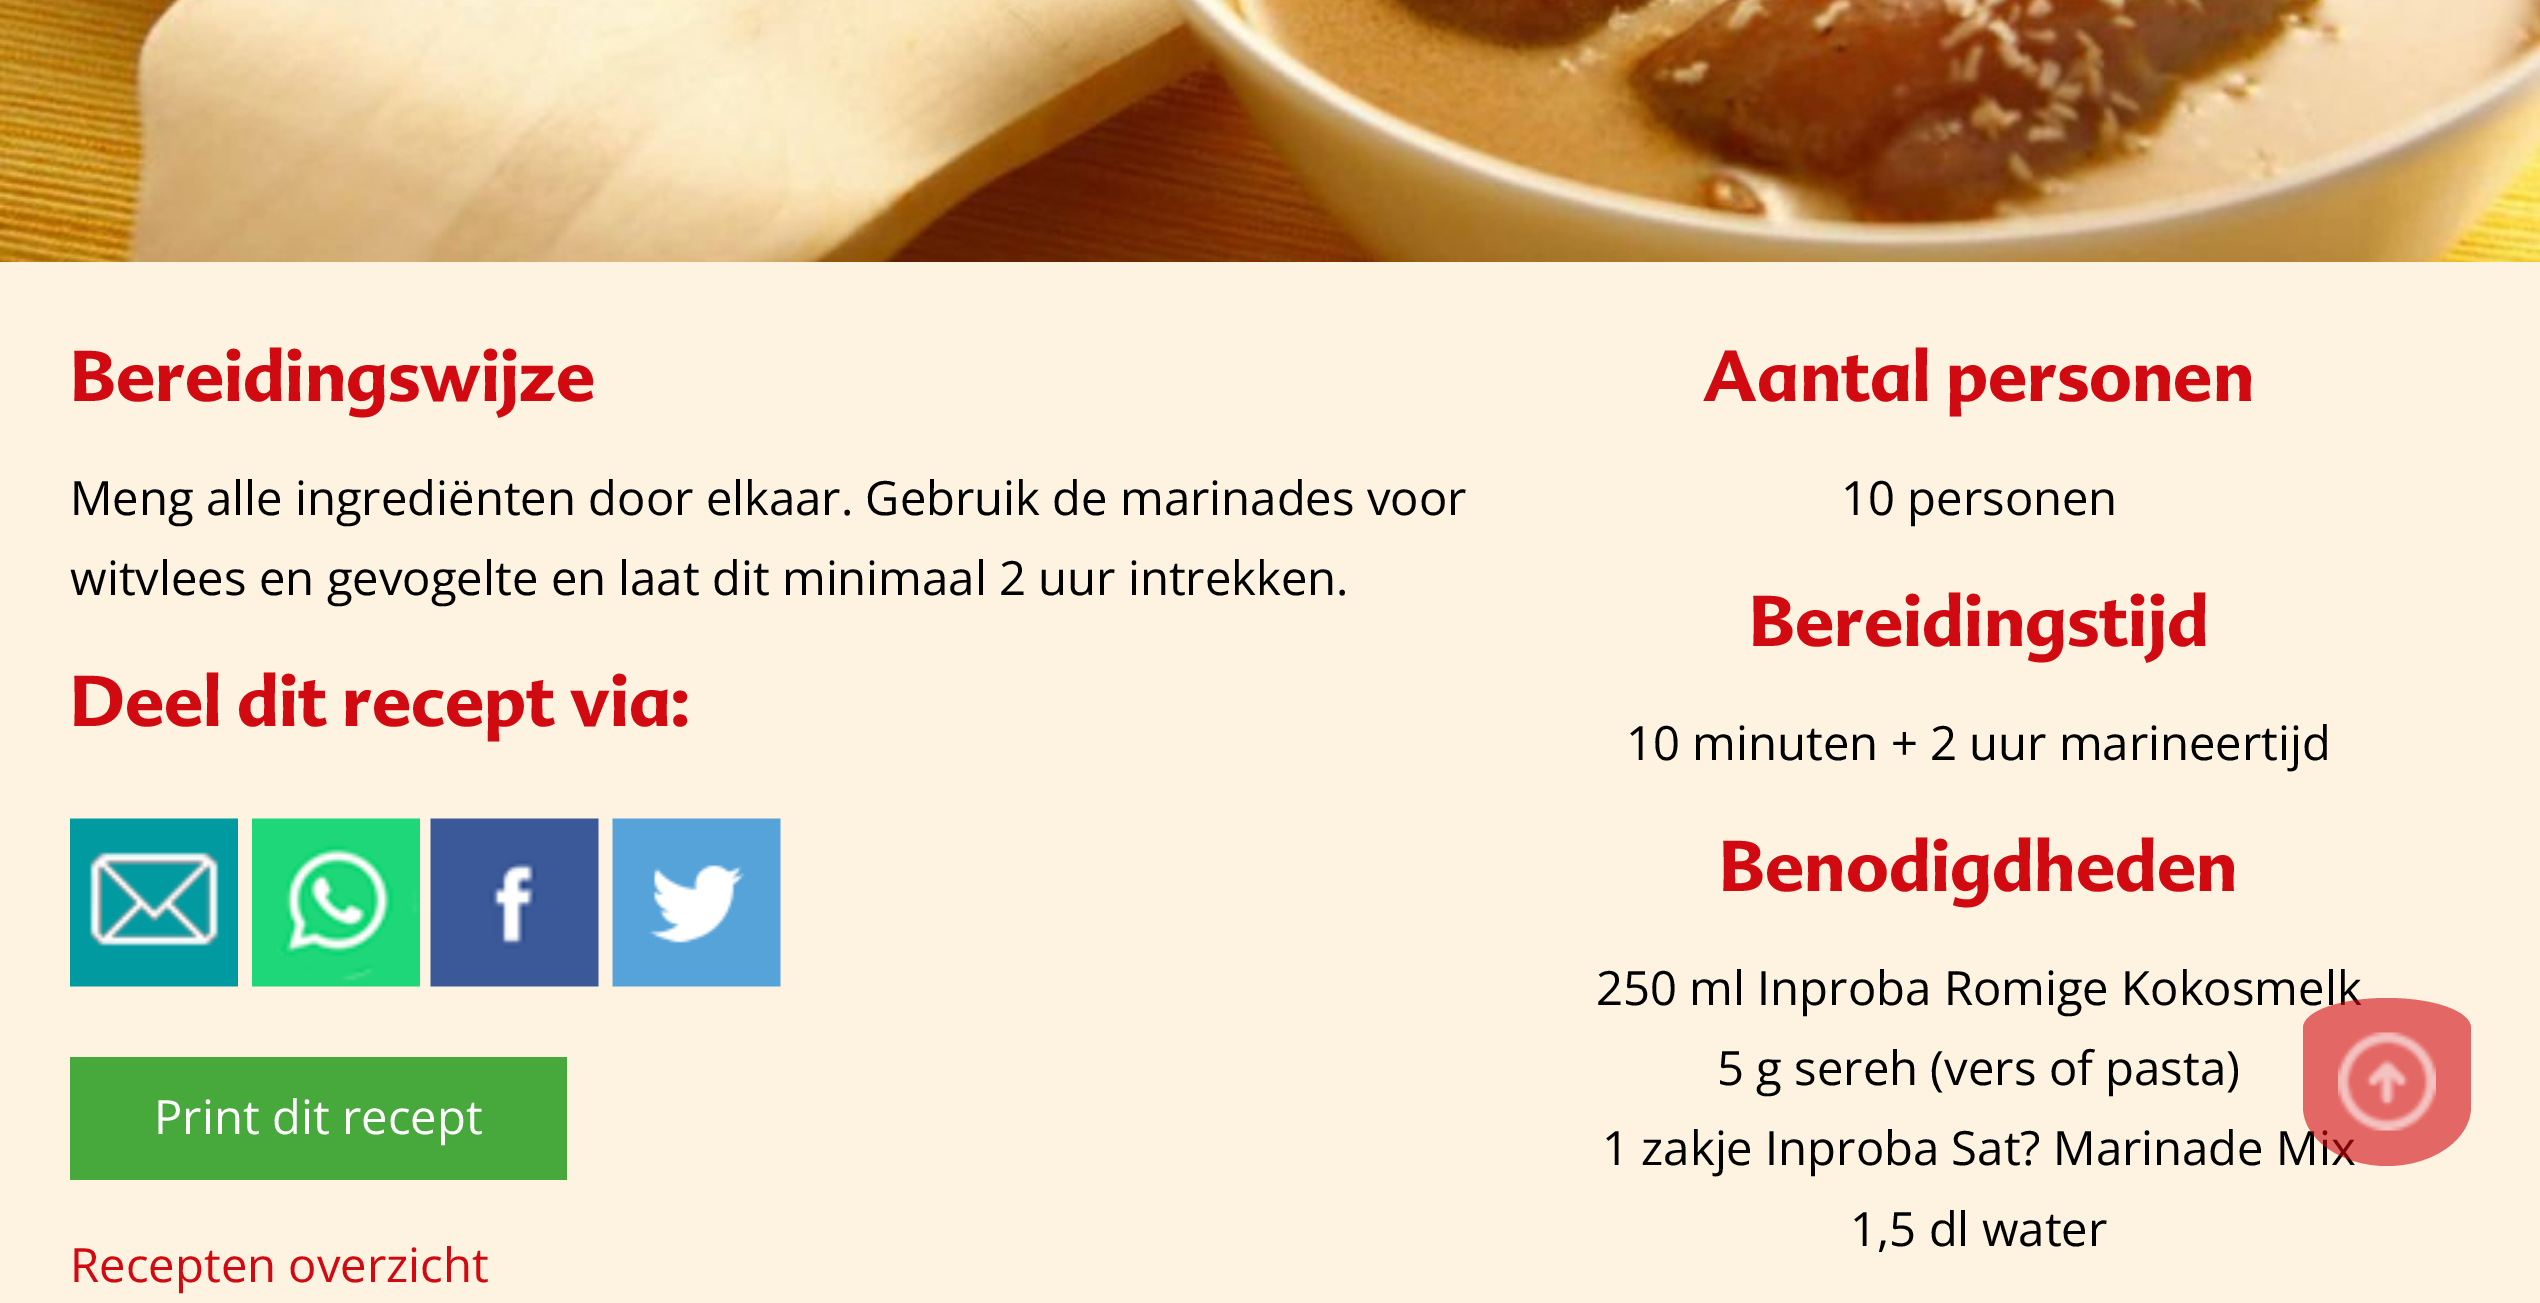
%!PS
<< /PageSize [2540 1303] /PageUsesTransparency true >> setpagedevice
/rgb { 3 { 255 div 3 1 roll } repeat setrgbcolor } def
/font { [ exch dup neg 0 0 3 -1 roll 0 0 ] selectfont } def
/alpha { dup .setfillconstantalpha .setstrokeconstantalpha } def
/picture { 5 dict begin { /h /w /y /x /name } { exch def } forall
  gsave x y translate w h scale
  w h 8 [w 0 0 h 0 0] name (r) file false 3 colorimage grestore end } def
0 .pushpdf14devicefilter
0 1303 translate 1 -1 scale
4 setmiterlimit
254 243 225 rgb
0 0 2540 1303 rectfill
(img/1.rgb) 0 0 2540 262 picture
(img/2.rgb) 70 818 168 169 picture
(img/3.rgb) 252 818 168 169 picture
(img/4.rgb) 430 818 169 169 picture
(img/5.rgb) 612 818 169 169 picture
71 168 60 rgb
70 1057 497 123 rectfill
/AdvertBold-Bold 70 font
209 10 17 rgb
70 401 moveto (Bereidingswijze) show
/OpenSans-Regular 47.25 font
0 0 0 rgb
70 515 moveto (Meng alle ingrediënten door elkaar. Gebruik de marinades voor) show
70 595 moveto (witvlees en gevogelte en laat dit minimaal 2 uur intrekken.) show
/AdvertBold-Bold 70 font
209 10 17 rgb
70 726 moveto (Deel dit recept via:) show
/OpenSans-Regular 47.25 font
255 255 255 rgb
154 1134 moveto (Print dit recept) show
209 10 17 rgb
70 1282 moveto (Recepten overzicht) show
/AdvertBold-Bold 70 font
1703 401 moveto (Aantal personen) show
/OpenSans-Regular 47.25 font
0 0 0 rgb
1841 515 moveto (10 personen) show
/AdvertBold-Bold 70 font
209 10 17 rgb
1749 646 moveto (Bereidingstijd) show
/OpenSans-Regular 47.25 font
0 0 0 rgb
1626 760 moveto (10 minuten + 2 uur marineertijd) show
/AdvertBold-Bold 70 font
209 10 17 rgb
1719 891 moveto (Benodigdheden) show
/OpenSans-Regular 47.25 font
0 0 0 rgb
[
  [(250 ml Inproba Romige Kokosmelk) 1596 1005]
  [(5 g sereh \(vers of pasta\)) 1717 1085]
  [(1 zakje Inproba Sat? Marinade Mix) 1602 1165]
  [(1,5 dl water) 1850 1246]
] { aload pop moveto show } forall
0.6 alpha
209 10 17 rgb
2387 998 moveto 2433 998 2471 1011 2471 1028 curveto 2471 1107 lineto 2471 1139 2433 1166 2387 1166 curveto 2341 1166 2303 1139 2303 1107 curveto 2303 1028 lineto 2303 1011 2341 998 2387 998 curveto closepath fill
1 alpha
(img/6.rgb) 2338 1032 98 99 picture
.poppdf14devicefilter showpage
